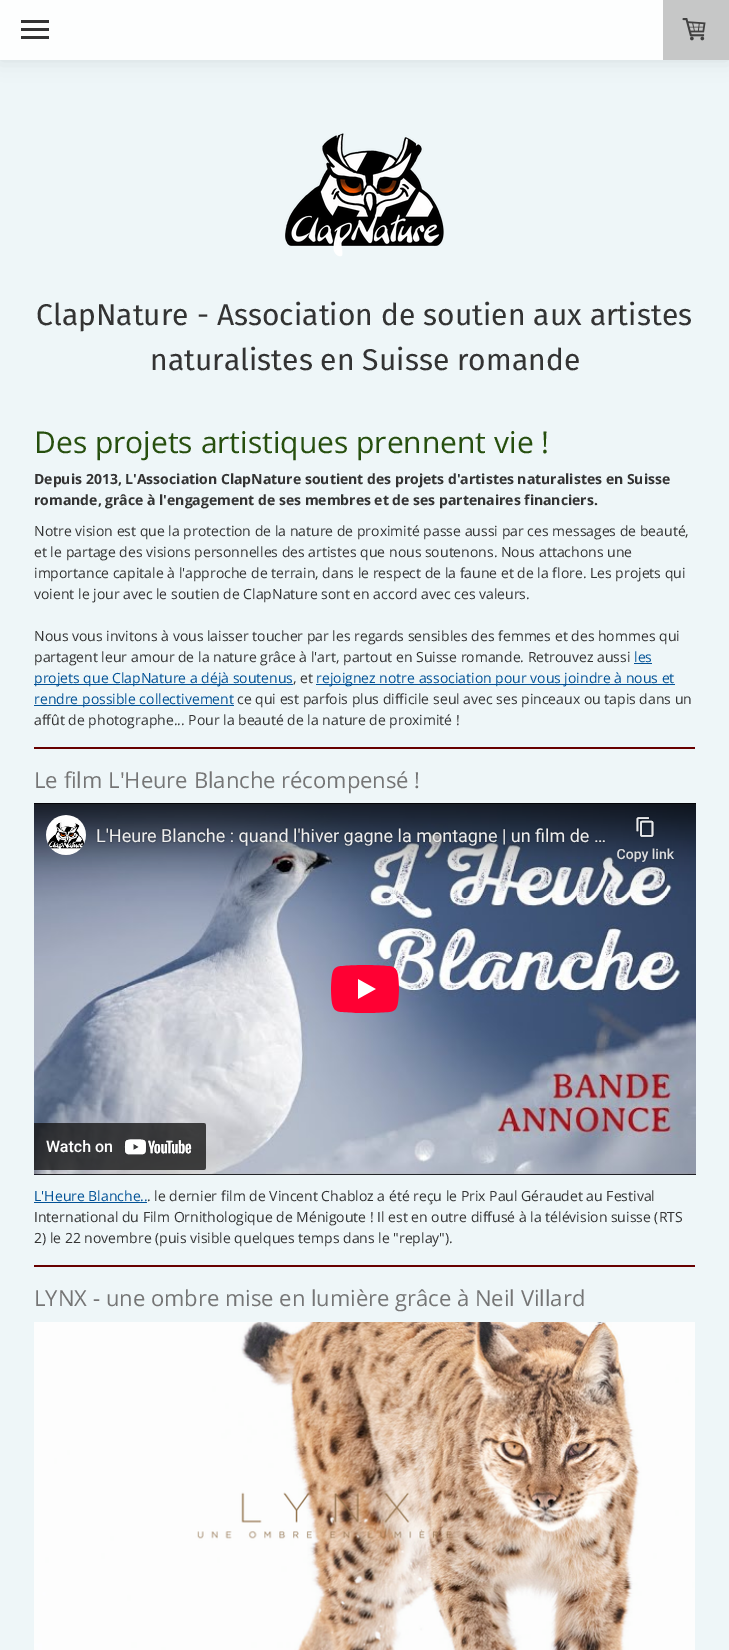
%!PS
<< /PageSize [729 1650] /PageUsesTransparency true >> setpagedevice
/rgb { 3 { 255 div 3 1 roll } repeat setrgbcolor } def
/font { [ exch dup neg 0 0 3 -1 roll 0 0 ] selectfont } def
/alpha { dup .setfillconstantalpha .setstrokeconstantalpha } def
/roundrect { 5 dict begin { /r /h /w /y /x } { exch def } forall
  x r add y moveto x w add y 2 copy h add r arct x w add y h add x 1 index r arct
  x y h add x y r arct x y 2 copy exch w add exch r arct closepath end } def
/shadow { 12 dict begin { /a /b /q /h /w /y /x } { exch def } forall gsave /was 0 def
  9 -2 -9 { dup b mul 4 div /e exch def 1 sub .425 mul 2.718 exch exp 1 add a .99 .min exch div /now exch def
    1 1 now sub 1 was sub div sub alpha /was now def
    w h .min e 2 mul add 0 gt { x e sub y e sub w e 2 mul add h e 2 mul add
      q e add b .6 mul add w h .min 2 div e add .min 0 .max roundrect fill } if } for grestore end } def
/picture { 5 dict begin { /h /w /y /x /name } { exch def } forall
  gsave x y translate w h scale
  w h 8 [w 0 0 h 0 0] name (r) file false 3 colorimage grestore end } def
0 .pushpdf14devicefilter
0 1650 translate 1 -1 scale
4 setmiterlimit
238 246 248 rgb
0 0 729 1650 rectfill
0 0 0 rgb
0 0 729 60 0 10 0.1 shadow
[
  [0 0 663 60 253 254 254]
  [21 28 28 3 51 51 51]
  [21 20 28 3 51 51 51]
  [21 36 28 3 51 51 51]
  [663 0 66 60 198 199 199]
] { aload pop rgb rectfill } forall
(img/1.rgb) 682 18 24 23 picture
(img/2.rgb) 285 133 159 124 picture
[
  [634 663 18 1 2 82 150]
  [34 684 259 1 2 82 150]
  [316 684 359 1 2 82 150]
  [34 705 200 1 2 82 150]
  [34 747 661 2 103 0 0]
] { aload pop rgb rectfill } forall
(img/3.rgb) 34 803 662 372 picture
2 82 150 rgb
34 1202 113 1 rectfill
103 0 0 rgb
34 1265 661 2 rectfill
(img/4.rgb) 34 1322 661 328 picture
/FiraSans-Regular 30 font
51 51 51 rgb
36 325 moveto (ClapNature - Association de soutien aux artistes) show
150 370 moveto (naturalistes en Suisse romande) show
/OpenSans-Regular 30 font
38 79 14 rgb
34 453 moveto (Des projets artistiques prennent vie !) show
/OpenSans-Bold 14 font
51 51 51 rgb
34 484 moveto (Depuis 2013, L'Association ClapNature soutient des projets d'artistes naturalistes en Suisse) show
34 505 moveto (romande, grâce à l'engagement de ses membres et de ses partenaires financiers.) show
/OpenSans-Regular 14 font
[
  [(Notre vision est que la protection de la nature de proximité passe aussi par ces messages de beauté,) 34 536]
  [(et le partage des visions personnelles des artistes que nous soutenons. Nous attachons une) 34 557]
  [(importance capitale à l'approche de terrain, dans le respect de la faune et de la flore. Les projets qui) 34 578]
  [(voient le jour avec le soutien de ClapNature sont en accord avec ces valeurs.) 34 599]
  [(Nous vous invitons à vous laisser toucher par les regards sensibles des femmes et des hommes qui) 34 641]
  [(partagent leur amour de la nature grâce à l'art, partout en Suisse romande. Retrouvez aussi) 34 662]
] { aload pop moveto show } forall
2 82 150 rgb
634 662 moveto (les) show
34 683 moveto (projets que ClapNature a déjà soutenus) show
51 51 51 rgb
293 683 moveto (, et) show
2 82 150 rgb
316 683 moveto (rejoignez notre association pour vous joindre à nous et) show
34 704 moveto (rendre possible collectivement) show
51 51 51 rgb
237 704 moveto (ce qui est parfois plus difficile seul avec ses pinceaux ou tapis dans un) show
34 725 moveto (affût de photographe... Pour la beauté de la nature de proximité !) show
/OpenSans-Regular 22 font
117 117 117 rgb
34 788 moveto (Le film L'Heure Blanche récompensé !) show
/OpenSans-Regular 14 font
2 82 150 rgb
34 1201 moveto (L'Heure Blanche..) show
51 51 51 rgb
[
  [(. le dernier film de Vincent Chabloz a été reçu le Prix Paul Géraudet au Festival) 147 1201]
  [(International du Film Ornithologique de Ménigoute ! Il est en outre diffusé à la télévision suisse \(RTS) 34 1222]
  [(2\) le 22 novembre \(puis visible quelques temps dans le "replay"\).) 34 1243]
] { aload pop moveto show } forall
/OpenSans-Regular 22 font
117 117 117 rgb
34 1306 moveto (LYNX - une ombre mise en lumière grâce à Neil Villard) show
.poppdf14devicefilter showpage
